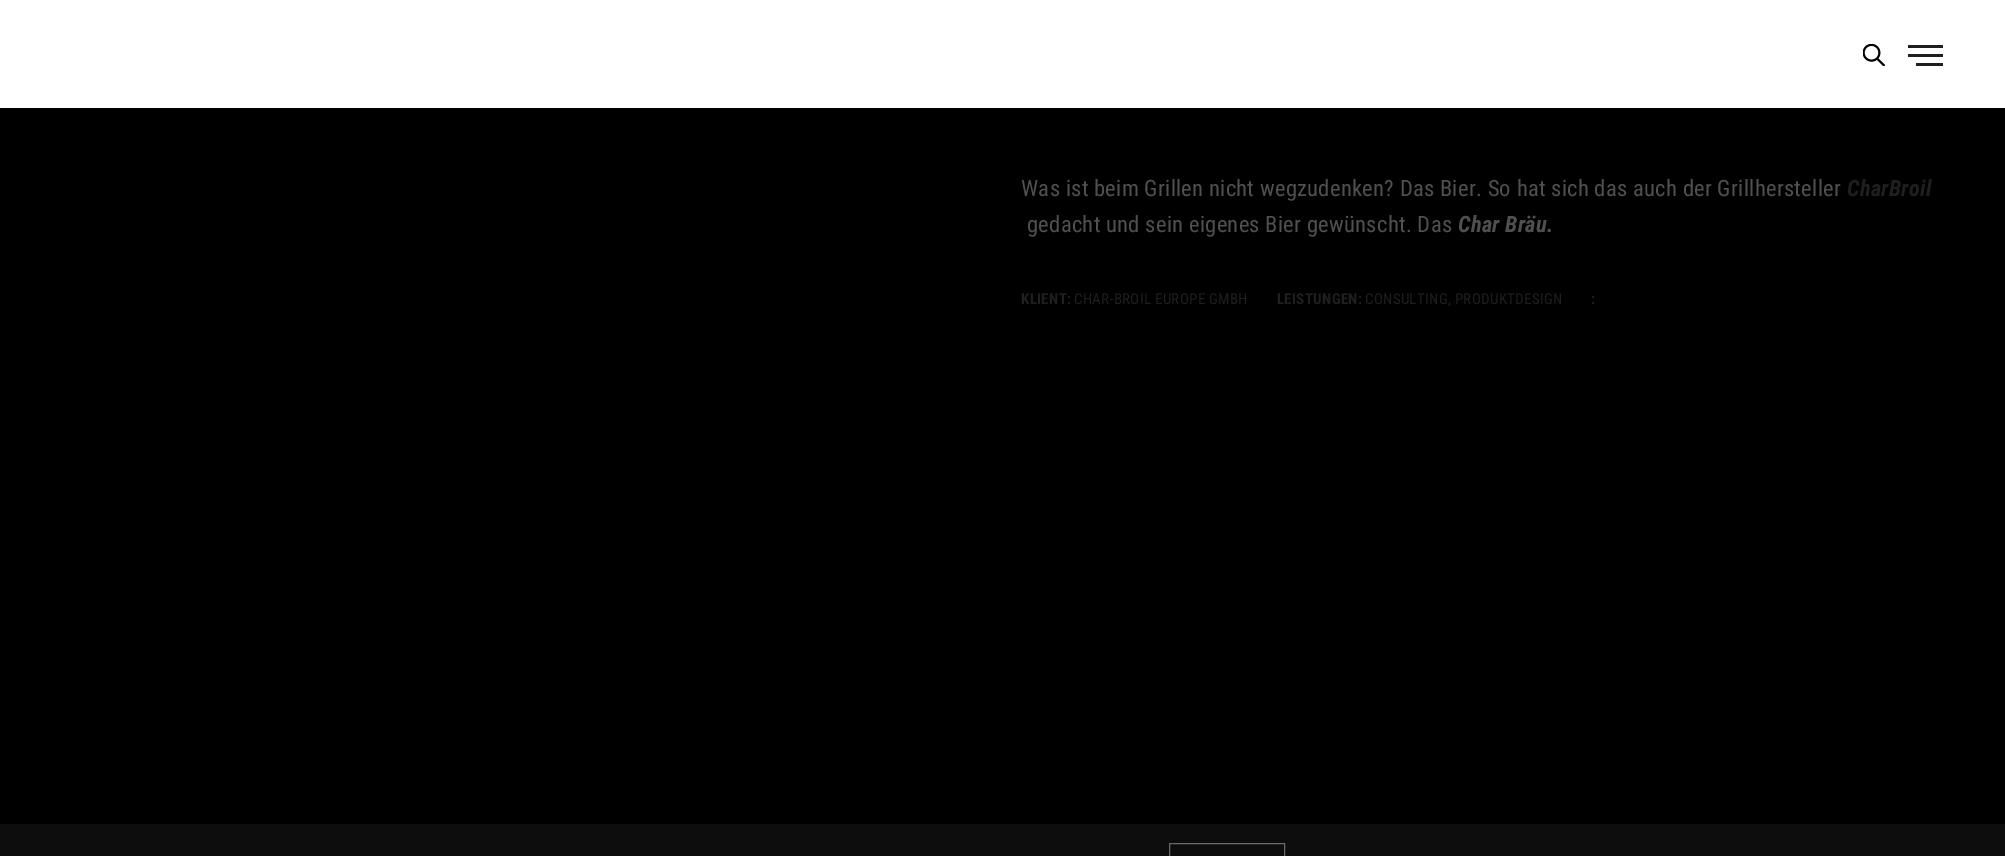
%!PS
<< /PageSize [2005 856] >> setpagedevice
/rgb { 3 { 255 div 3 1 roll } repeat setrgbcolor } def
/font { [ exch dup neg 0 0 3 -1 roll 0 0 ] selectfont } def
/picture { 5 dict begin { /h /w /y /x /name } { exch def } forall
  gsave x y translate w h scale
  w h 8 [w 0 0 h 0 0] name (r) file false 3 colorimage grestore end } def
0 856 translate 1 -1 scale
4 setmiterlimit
0 0 0 rgb
0 0 2005 856 rectfill
255 255 255 rgb
0 0 2005 108 rectfill
(img/1.rgb) 1863 44 22 22 picture
[
  [1908 45 35 3 31 31 31]
  [1908 54 35 3 31 31 31]
  [1916 63 27 3 31 31 31]
  [0 824 2005 32 13 13 13]
] { aload pop rgb rectfill } forall
105 105 105 rgb
1169.5 843.5 115 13 rectstroke
/RobotoCondensed-Regular 22.5 font
80 80 80 rgb
1021 196 moveto 0.3 0 (Was ist beim Grillen nicht wegzudenken? Das Bier. So hat sich das auch der Grillhersteller) ashow
/RobotoCondensed-BoldItalic 22.5 font
31 31 31 rgb
1847 196 moveto 0.3 0 (CharBroil) ashow
/RobotoCondensed-Regular 22.5 font
80 80 80 rgb
1027 232 moveto 0.3 0 (gedacht und sein eigenes Bier gewünscht. Das) ashow
/RobotoCondensed-BoldItalic 22.5 font
1458 232 moveto 0.3 0 (Char Bräu.) ashow
/RobotoCondensed-Bold 15 font
31 31 31 rgb
1021 304 moveto 0.3 0 (KLIENT:) ashow
/RobotoCondensed-Regular 15 font
1074 304 moveto 0.3 0 (CHAR-BROIL EUROPE GMBH) ashow
/RobotoCondensed-Bold 15 font
1277 304 moveto 0.3 0 (LEISTUNGEN:) ashow
/RobotoCondensed-Regular 15 font
1365 304 moveto 0.3 0 (CONSULTING, PRODUKTDESIGN) ashow
/RobotoCondensed-Bold 15 font
1591 304 moveto 0.3 0 (:) ashow
showpage
